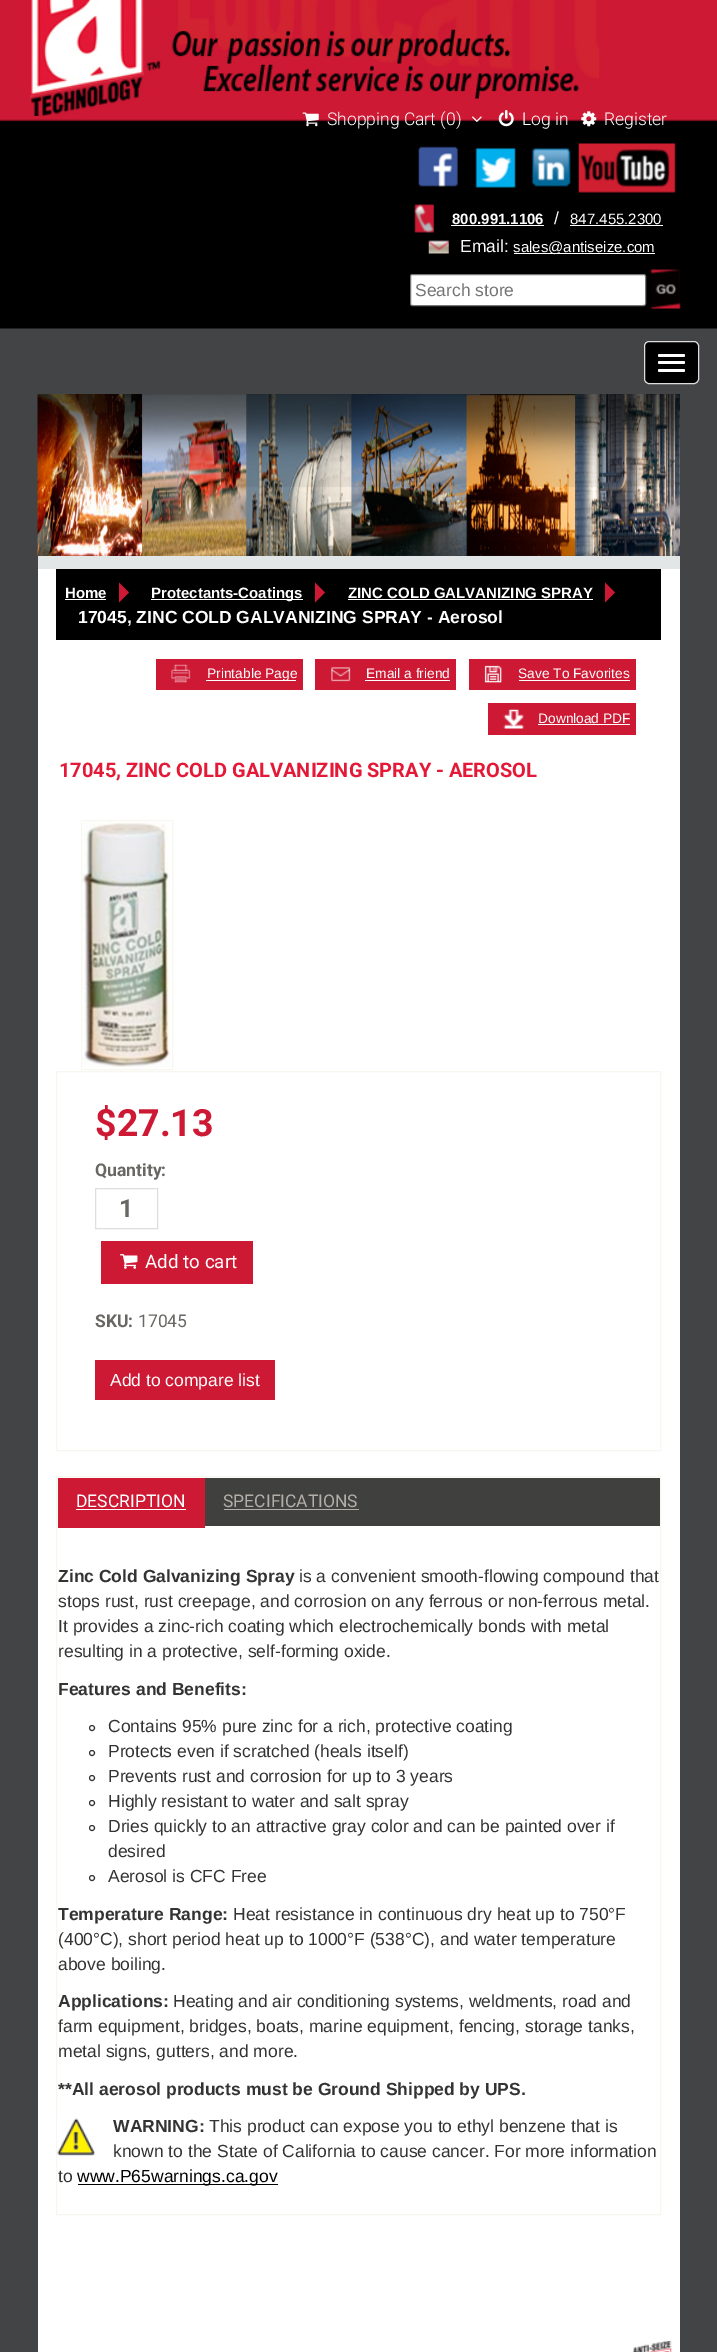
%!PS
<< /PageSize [717 2352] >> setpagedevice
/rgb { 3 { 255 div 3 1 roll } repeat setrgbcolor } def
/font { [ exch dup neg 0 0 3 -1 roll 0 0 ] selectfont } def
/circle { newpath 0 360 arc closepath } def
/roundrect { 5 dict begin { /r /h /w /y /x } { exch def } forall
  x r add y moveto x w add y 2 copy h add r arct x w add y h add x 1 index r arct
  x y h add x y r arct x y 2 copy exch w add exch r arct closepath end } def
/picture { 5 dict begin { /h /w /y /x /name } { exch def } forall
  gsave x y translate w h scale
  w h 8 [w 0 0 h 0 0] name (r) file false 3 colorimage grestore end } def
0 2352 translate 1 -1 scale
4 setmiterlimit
67 68 70 rgb
0 0 717 2352 rectfill
(img/1.rgb) 0 0 717 329 picture
(img/2.rgb) 30 0 569 116 picture
(img/3.rgb) 302 112 17 15 picture
(img/4.rgb) 472 116 10 6 picture
(img/5.rgb) 498 110 16 17 picture
(img/6.rgb) 581 111 16 16 picture
(img/7.rgb) 418 146 40 41 picture
(img/8.rgb) 475 147 41 41 picture
(img/9.rgb) 531 147 40 40 picture
(img/10.rgb) 578 143 98 50 picture
(img/11.rgb) 414 204 20 29 picture
255 255 255 rgb
451 225 93 1 rectfill
570 225 93 1 rectfill
(img/12.rgb) 428 240 21 14 picture
514 253 141 1 rectfill
410.5 274.5 235 31 2 roundrect gsave fill grestore
118 118 118 rgb
stroke
(img/13.rgb) 650 269 31 40 picture
0 0 0 rgb
644.5 341.5 54 42 4.5 roundrect gsave fill grestore
221 221 221 rgb
stroke
255 255 255 rgb
658 354 27 3 1.5 roundrect fill
658 361 27 3 1.5 roundrect fill
658 369 27 3 1.5 roundrect fill
(img/14.rgb) 37 394 643 162 picture
[
  [38 556 642 13 226 230 231]
  [38 569 642 1783 255 255 255]
  [56 569 605 71 0 0 0]
  [65 599 41 1 255 255 255]
] { aload pop rgb rectfill } forall
205 25 52 rgb
119 602.5 moveto 119 582.5 lineto 129 592.5 lineto closepath fill
255 255 255 rgb
151 599 152 1 rectfill
205 25 52 rgb
315 602.5 moveto 315 582.5 lineto 325 592.5 lineto closepath fill
255 255 255 rgb
348 599 245 1 rectfill
205 25 52 rgb
605 602.5 moveto 605 582.5 lineto 615 592.5 lineto closepath fill
156 659 147 31 rectfill
(img/15.rgb) 171 664 20 19 picture
255 255 255 rgb
206 680 90 1 rectfill
205 25 52 rgb
315 659 141 31 rectfill
(img/16.rgb) 331 667 20 15 picture
255 255 255 rgb
365 680 85 1 rectfill
205 25 52 rgb
469 659 167 31 rectfill
(img/17.rgb) 484 665 18 18 picture
255 255 255 rgb
519 680 111 1 rectfill
205 25 52 rgb
488 703 148 32 rectfill
(img/18.rgb) 503 709 21 20 picture
255 255 255 rgb
538 724 92 1 rectfill
247 247 240 rgb
81.5 820.5 91 249 rectstroke
(img/19.rgb) 82 821 89 248 picture
56.5 1071.5 604 379 rectstroke
222 222 220 rgb
95.5 1188.5 62 40 rectstroke
205 25 52 rgb
101 1241 152 43 rectfill
(img/20.rgb) 120 1254 18 15 picture
95 1360 180 40 rectfill
247 247 240 rgb
56.5 1476.5 604 738 rectstroke
[
  [205 1478 455 48 64 64 62]
  [58 1478 147 50 205 25 52]
  [76 1509 110 1 255 255 255]
  [224 1509 135 1 179 175 168]
] { aload pop rgb rectfill } forall
51 51 51 rgb
92 1728 2.5 circle stroke
92 1753 2.5 circle stroke
92 1778 2.5 circle stroke
92 1803 2.5 circle stroke
92 1828 2.5 circle stroke
92 1878 2.5 circle stroke
(img/21.rgb) 57 2118 38 39 picture
0 0 0 rgb
78 2184 200 1 rectfill
(img/22.rgb) 633 2340 39 12 picture
/Roboto-Light 17.5 font
255 255 255 rgb
[
  [(Shopping Cart \(0\)) 327 125]
  [(Log in) 522 125]
  [(Register) 604 125]
] { aload pop moveto show } forall
/LiberationSans-Bold 15 font
452 224 moveto (800.991.1106) show
/LiberationSans-Regular 17.5 font
554 224 moveto (/) show
/LiberationSans-Regular 15 font
570 224 moveto (847.455.2300) show
/LiberationSans-Regular 17.5 font
460 252 moveto (Email:) show
/LiberationSans-Regular 15 font
513 252 moveto (sales@antiseize.com) show
/LiberationSans-Regular 17.5 font
117 117 117 rgb
415 296 moveto (Search store) show
/LiberationSans-Bold 15 font
255 255 255 rgb
[
  [(Home) 65 598]
  [(Protectants-Coatings) 151 598]
  [(ZINC COLD GALVANIZING SPRAY) 348 598]
] { aload pop moveto show } forall
/LiberationSans-Bold 17.5 font
78 623 moveto (17045, ZINC COLD GALVANIZING SPRAY - Aerosol) show
/LiberationSans-Regular 13.75 font
[
  [(Printable Page) 207 678]
  [(Email a friend) 366 678]
  [(Save To Favorites) 518 678]
  [(Download PDF) 538 723]
] { aload pop moveto show } forall
/Roboto-Bold 20 font
228 25 55 rgb
59 777 moveto (17045, ZINC COLD GALVANIZING SPRAY - AEROSOL) show
/Roboto-Bold 37.5 font
205 25 52 rgb
95 1136 moveto ($27.13) show
/Roboto-Bold 17.5 font
105 103 99 rgb
95 1176 moveto (Quantity:) show
/Roboto-Bold 25 font
119 1217 moveto (1) show
/Roboto-Regular 18.75 font
255 255 255 rgb
145 1268 moveto (Add to cart) show
/Roboto-Bold 17.5 font
105 103 99 rgb
95 1327 moveto (SKU:) show
/Roboto-Regular 17.5 font
138 1327 moveto (17045) show
/LiberationSans-Regular 17.5 font
255 255 255 rgb
110 1386 moveto (Add to compare list) show
/Roboto-Regular 17.5 font
76 1507 moveto (DESCRIPTION) show
179 175 168 rgb
223 1507 moveto (SPECIFICATIONS) show
/LiberationSans-Bold 17.5 font
51 51 51 rgb
58 1582 moveto (Zinc Cold Galvanizing Spray) show
/LiberationSans-Regular 17.5 font
[
  [(is a convenient smooth-flowing compound that) 299 1582]
  [(stops rust, rust creepage, and corrosion on any ferrous or non-ferrous metal.) 58 1607]
  [(It provides a zinc-rich coating which electrochemically bonds with metal) 58 1632]
  [(resulting in a protective, self-forming oxide.) 58 1657]
] { aload pop moveto show } forall
/LiberationSans-Bold 17.5 font
58 1695 moveto (Features and Benefits:) show
/LiberationSans-Regular 17.5 font
[
  [(Contains 95% pure zinc for a rich, protective coating) 108 1732]
  [(Protects even if scratched \(heals itself\)) 108 1757]
  [(Prevents rust and corrosion for up to 3 years) 108 1782]
  [(Highly resistant to water and salt spray) 108 1807]
  [(Dries quickly to an attractive gray color and can be painted over if) 108 1832]
  [(desired) 108 1857]
  [(Aerosol is CFC Free) 108 1882]
] { aload pop moveto show } forall
/LiberationSans-Bold 17.5 font
58 1920 moveto (Temperature Range:) show
/LiberationSans-Regular 17.5 font
[
  [(Heat resistance in continuous dry heat up to 750°F) 233 1920]
  [(\(400°C\), short period heat up to 1000°F \(538°C\), and water temperature) 58 1945]
  [(above boiling.) 58 1970]
] { aload pop moveto show } forall
/LiberationSans-Bold 17.5 font
58 2007 moveto (Applications:) show
/LiberationSans-Regular 17.5 font
[
  [(Heating and air conditioning systems, weldments, road and) 173 2007]
  [(farm equipment, bridges, boats, marine equipment, fencing, storage tanks,) 58 2032]
  [(metal signs, gutters, and more.) 58 2057]
] { aload pop moveto show } forall
/LiberationSans-Bold 17.5 font
58 2095 moveto (**All aerosol products must be Ground Shipped by UPS.) show
113 2132 moveto (WARNING:) show
/LiberationSans-Regular 17.5 font
[
  [(This product can expose you to ethyl benzene that is) 209 2132]
  [(known to the State of California to cause cancer. For more information) 113 2157]
  [(to) 58 2182]
] { aload pop moveto show } forall
0 0 0 rgb
77 2182 moveto (www.P65warnings.ca.gov) show
showpage
